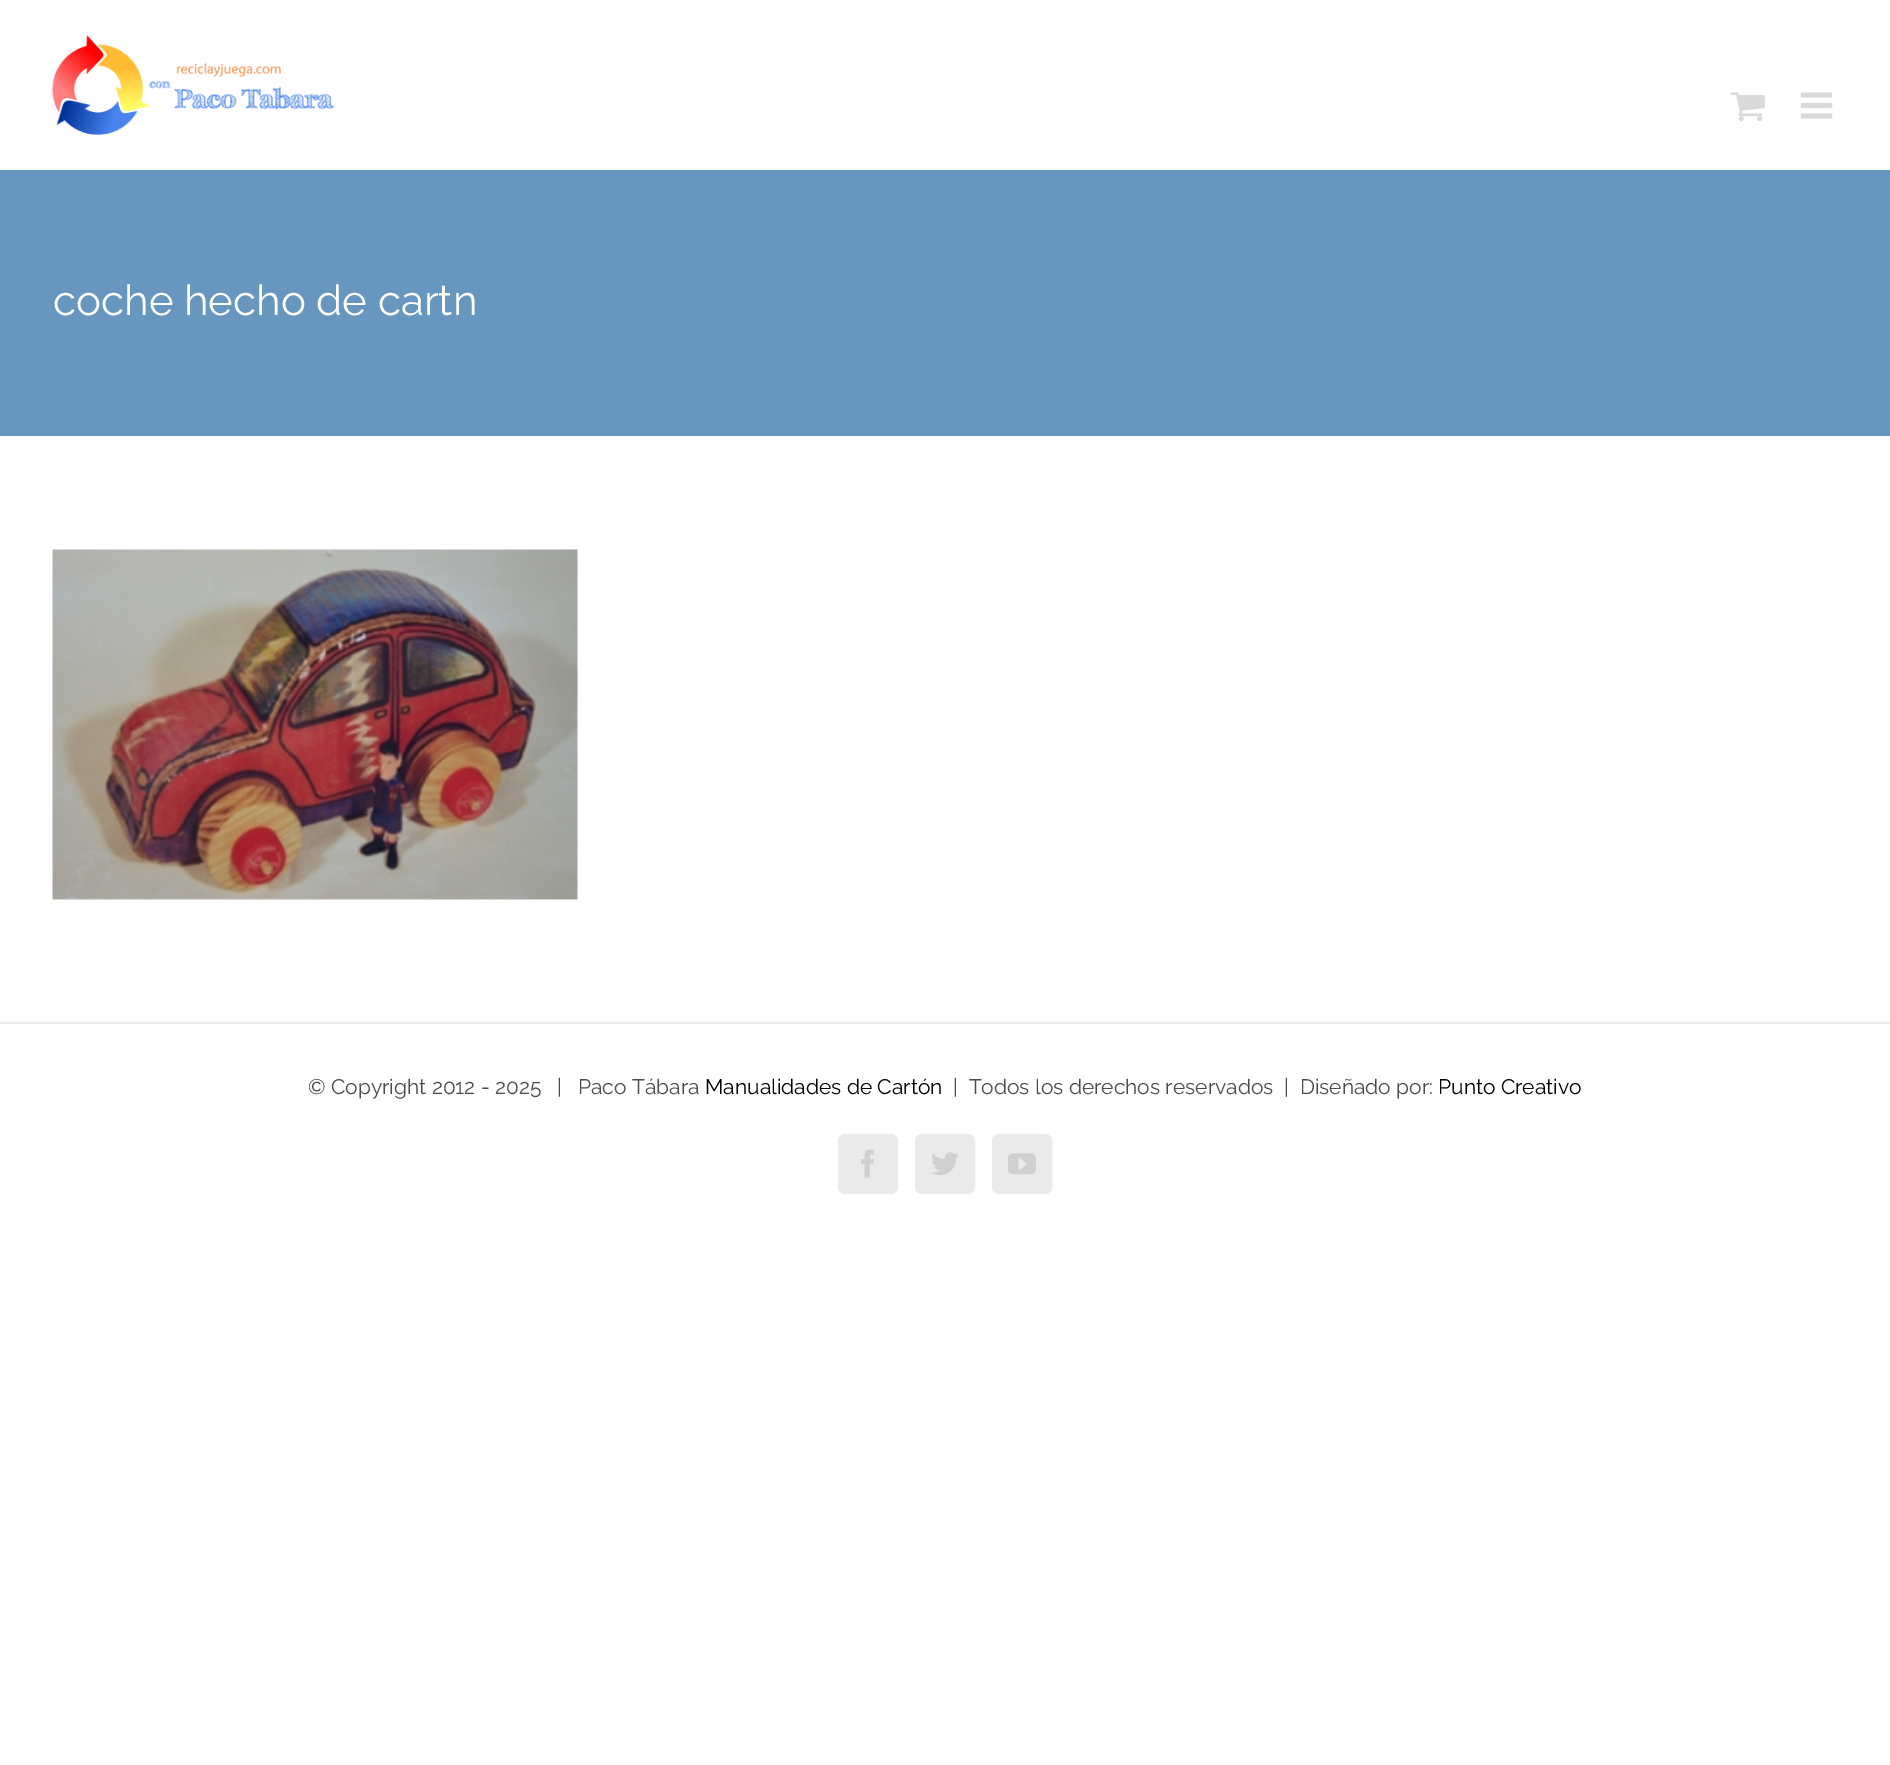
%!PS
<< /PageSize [1890 1765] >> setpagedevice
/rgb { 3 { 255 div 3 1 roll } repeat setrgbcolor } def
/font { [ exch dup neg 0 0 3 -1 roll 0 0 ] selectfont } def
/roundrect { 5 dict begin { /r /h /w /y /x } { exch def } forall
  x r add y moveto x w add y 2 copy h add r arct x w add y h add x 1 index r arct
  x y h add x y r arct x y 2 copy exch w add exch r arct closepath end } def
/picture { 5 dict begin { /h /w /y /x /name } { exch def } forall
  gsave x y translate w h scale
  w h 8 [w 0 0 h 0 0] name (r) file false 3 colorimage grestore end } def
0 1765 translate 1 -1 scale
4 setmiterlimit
255 255 255 rgb
0 0 1890 1765 rectfill
(img/1.rgb) 52 35 283 100 picture
(img/2.rgb) 1730 92 35 30 picture
(img/3.rgb) 1800 92 33 27 picture
103 150 191 rgb
0 170 1890 266 rectfill
(img/4.rgb) 52 549 526 351 picture
234 234 234 rgb
0 1022 1890 2 rectfill
839 1135 58 58 6 roundrect gsave fill grestore
2 setlinewidth
stroke
(img/5.rgb) 861 1149 13 29 picture
916 1135 58 58 6 roundrect gsave fill grestore
stroke
(img/6.rgb) 931 1152 28 23 picture
993 1135 58 58 6 roundrect gsave fill grestore
stroke
(img/7.rgb) 1008 1153 28 22 picture
/Raleway-Thin 42 font
255 255 255 rgb
53 315 moveto (coche hecho de cartn) show
/Raleway-Thin 21 font
76 76 76 rgb
308 1094 moveto (© Copyright 2012 - 2025   |   Paco Tábara) show
0 0 0 rgb
705 1094 moveto (Manualidades de Cartón) show
76 76 76 rgb
953 1094 moveto (|  Todos los derechos reservados  |  Diseñado por:) show
0 0 0 rgb
1438 1094 moveto (Punto Creativo) show
showpage
